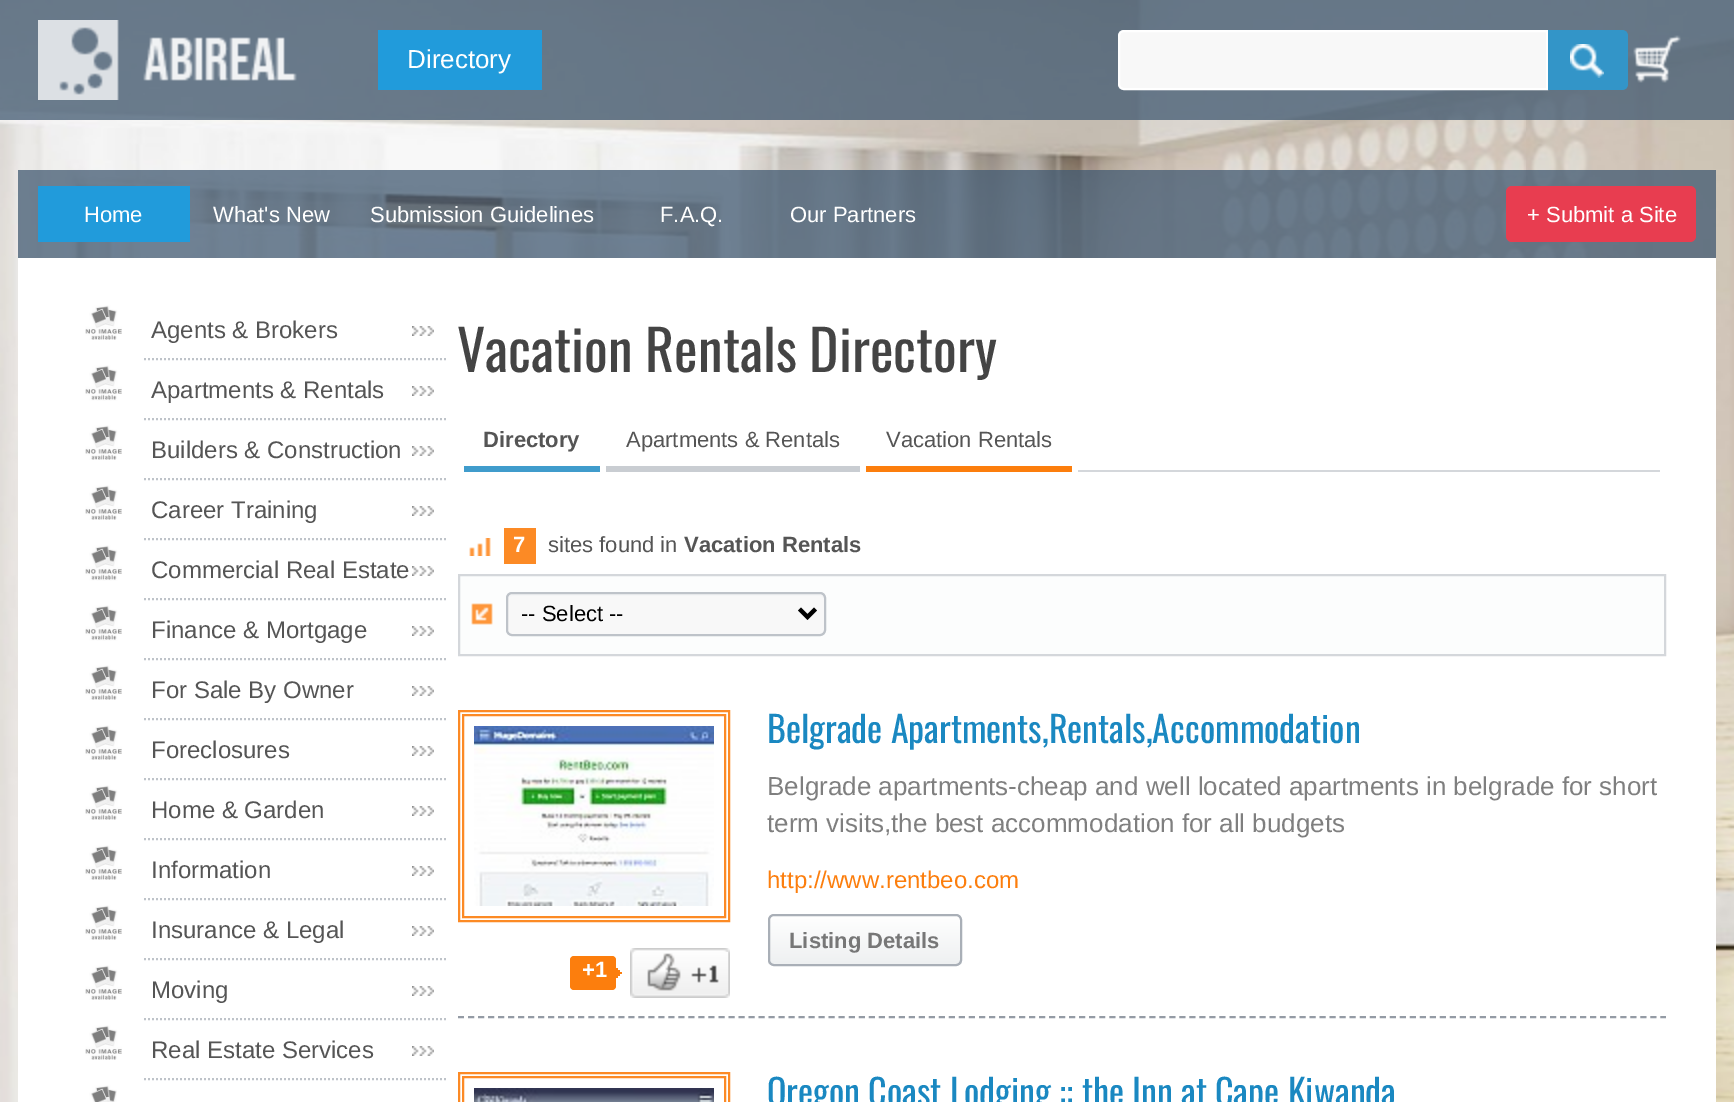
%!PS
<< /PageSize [1734 1102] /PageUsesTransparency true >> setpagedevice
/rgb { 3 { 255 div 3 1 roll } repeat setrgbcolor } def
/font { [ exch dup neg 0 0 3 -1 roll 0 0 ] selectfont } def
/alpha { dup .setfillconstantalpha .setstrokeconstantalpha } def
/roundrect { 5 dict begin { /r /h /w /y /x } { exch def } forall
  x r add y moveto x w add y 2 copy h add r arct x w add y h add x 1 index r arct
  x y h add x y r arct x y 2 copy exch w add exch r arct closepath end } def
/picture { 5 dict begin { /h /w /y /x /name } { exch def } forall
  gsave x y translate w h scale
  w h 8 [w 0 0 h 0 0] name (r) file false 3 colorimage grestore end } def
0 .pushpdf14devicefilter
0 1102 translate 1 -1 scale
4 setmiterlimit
255 255 255 rgb
0 0 1734 1102 rectfill
(img/1.rgb) 0 0 1734 1102 picture
0.75 alpha
65 89 113 rgb
0 0 1734 120 rectfill
1 alpha
(img/2.rgb) 38 20 259 80 picture
33 155 219 rgb
378 30 164 60 rectfill
248 248 248 rgb
1124 31 moveto 1547 31 lineto 1547 89 lineto 1124 89 lineto 1121 89 1119 87 1119 84 curveto 1119 36 lineto 1119 33 1121 31 1124 31 curveto closepath gsave fill grestore
255 255 255 rgb
2 setlinewidth
stroke
51 149 200 rgb
1548 30 moveto 1622 30 lineto 1625.5 30 1628 32.5 1628 36 curveto 1628 84 lineto 1628 87.5 1625.5 90 1622 90 curveto 1548 90 lineto closepath fill
(img/3.rgb) 1570 44 34 34 picture
(img/4.rgb) 1633 35 48 48 picture
0.75 alpha
65 89 113 rgb
18 170 1698 88 rectfill
1 alpha
33 155 219 rgb
38 186 152 56 rectfill
232 61 80 rgb
1506 186 190 56 6 roundrect fill
255 255 255 rgb
18 258 1698 844 rectfill
(img/5.rgb) 85 305 37 35 picture
(img/6.rgb) 412 326 22 10 picture
190 195 201 rgb
[2 2] 0 setdash
144 359 moveto 448 359 lineto stroke
(img/7.rgb) 85 365 37 36 picture
(img/6.rgb) 412 386 22 10 picture
144 419 moveto 448 419 lineto stroke
(img/8.rgb) 85 425 37 35 picture
(img/6.rgb) 412 446 22 10 picture
144 479 moveto 448 479 lineto stroke
(img/8.rgb) 85 485 37 35 picture
(img/6.rgb) 412 506 22 10 picture
144 539 moveto 448 539 lineto stroke
(img/9.rgb) 85 545 37 36 picture
(img/6.rgb) 412 566 22 10 picture
144 599 moveto 448 599 lineto stroke
(img/9.rgb) 85 605 37 36 picture
(img/6.rgb) 412 626 22 10 picture
144 659 moveto 448 659 lineto stroke
(img/8.rgb) 85 665 37 35 picture
(img/6.rgb) 412 686 22 10 picture
144 719 moveto 448 719 lineto stroke
(img/8.rgb) 85 725 37 35 picture
(img/6.rgb) 412 746 22 10 picture
144 779 moveto 448 779 lineto stroke
(img/8.rgb) 85 785 37 35 picture
(img/6.rgb) 412 806 22 10 picture
144 839 moveto 448 839 lineto stroke
(img/8.rgb) 85 845 37 35 picture
(img/6.rgb) 412 866 22 10 picture
144 899 moveto 448 899 lineto stroke
(img/8.rgb) 85 905 37 35 picture
(img/6.rgb) 412 926 22 10 picture
144 959 moveto 448 959 lineto stroke
(img/8.rgb) 85 965 37 35 picture
(img/6.rgb) 412 986 22 10 picture
144 1019 moveto 448 1019 lineto stroke
(img/10.rgb) 85 1025 37 35 picture
(img/6.rgb) 412 1046 22 10 picture
144 1079 moveto 448 1079 lineto stroke
(img/11.rgb) 88 1085 29 17 picture
[
  [464 466 136 6 64 156 204]
  [606 466 254 6 201 205 210]
  [866 466 206 6 252 126 13]
  [1078 470 582 2 212 215 219]
] { aload pop rgb rectfill } forall
(img/12.rgb) 469 538 22 18 picture
252 138 37 rgb
504 528 32 36 rectfill
252 253 253 rgb
460 576 1204 78 rectfill
(img/13.rgb) 471 603 22 22 picture
212 215 219 rgb
[] 0 setdash
459 575 1206 80 rectstroke
248 248 248 rgb
506 592 320 44 6 roundrect fill
244 245 246 rgb
512 596 moveto 820 596 lineto 822 596 824 598 824 600 curveto 824 597 824 594 820 594 curveto 512 594 lineto 508 594 508 597 508 600 curveto 508 598 510 596 512 596 curveto closepath fill
190 195 201 rgb
507 593 318 42 5 roundrect stroke
0 0 0 rgb
4 setlinewidth
799.5 609 moveto 807.5 617 lineto 815.5 609 lineto stroke
148 155 165 rgb
2 setlinewidth
[6 4.02] 0 setdash
458 1017 moveto 1666 1017 lineto stroke
gsave
768 914 194 52 6 roundrect clip newpath
gsave 768 916 moveto 962 916 lineto 962 964 lineto 768 964 lineto closepath clip newpath
<< /ShadingType 2 /ColorSpace /DeviceRGB /Coords [865 916 865 964] /Extend [true true] /Function << /FunctionType 2 /Domain [0 1] /C0 [1 1 1] /C1 [0.933 0.941 0.945] /N 1 >> >> shfill grestore
grestore
169 175 183 rgb
[] 0 setdash
769 915 192 50 5 roundrect stroke
252 138 37 rgb
459 711 270 210 rectstroke
463 715 262 202 rectstroke
(img/14.rgb) 474 726 240 180 picture
252 126 13 rgb
570 956 46 34 4 roundrect fill
[
  [616 968 2 10 252 126 13]
  [618 970 2 6 252 126 13]
  [620 972 2 2 252 126 13]
] { aload pop rgb rectfill } forall
(img/15.rgb) 630 948 100 50 picture
(img/16.rgb) 634 952 94 42 picture
252 138 37 rgb
459 1073 270 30 rectstroke
463 1077 262 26 rectstroke
(img/17.rgb) 474 1088 240 14 picture
/LiberationSans-Regular 26 font
255 255 255 rgb
407 68 moveto (Directory) show
/LiberationSans-Regular 22 font
[
  [(Home) 84 222]
  [(What's New) 213 222]
  [(Submission Guidelines) 370 222]
  [(F.A.Q.) 660 222]
  [(Our Partners) 790 222]
  [(+ Submit a Site) 1527 222]
] { aload pop moveto show } forall
/LiberationSans-Regular 24 font
85 85 85 rgb
[
  [(Agents & Brokers) 151 338]
  [(Apartments & Rentals) 151 398]
  [(Builders & Construction) 151 458]
  [(Career Training) 151 518]
  [(Commercial Real Estate) 151 578]
  [(Finance & Mortgage) 151 638]
  [(For Sale By Owner) 151 698]
  [(Foreclosures) 151 758]
  [(Home & Garden) 151 818]
  [(Information) 151 878]
  [(Insurance & Legal) 151 938]
  [(Moving) 151 998]
  [(Real Estate Services) 151 1058]
] { aload pop moveto show } forall
/Oswald-Regular 56 font
68 68 68 rgb
457 372 moveto (Vacation Rentals Directory) show
/LiberationSans-Bold 22 font
85 85 85 rgb
483 447 moveto (Directory) show
/LiberationSans-Regular 22 font
626 447 moveto (Apartments & Rentals) show
886 447 moveto (Vacation Rentals) show
/LiberationSans-Bold 22 font
255 255 255 rgb
513 552 moveto (7) show
/LiberationSans-Regular 22 font
85 85 85 rgb
548 552 moveto (sites found in) show
/LiberationSans-Bold 22 font
684 552 moveto (Vacation Rentals) show
/LiberationSans-Regular 22 font
0 0 0 rgb
521 621 moveto (-- Select --) show
/Oswald-Regular 36 font
26 136 193 rgb
767 743 moveto (Belgrade Apartments,Rentals,Accommodation) show
/LiberationSans-Regular 26 font
127 127 127 rgb
767 795 moveto (Belgrade apartments-cheap and well located apartments in belgrade for short) show
767 832 moveto (term visits,the best accommodation for all budgets) show
/LiberationSans-Regular 24 font
252 126 13 rgb
767 888 moveto (http://www.rentbeo.com) show
/LiberationSans-Bold 22 font
119 119 119 rgb
789 948 moveto (Listing Details) show
255 255 255 rgb
582 977 moveto (+1) show
/Oswald-Regular 36 font
26 136 193 rgb
767 1106 moveto (Oregon Coast Lodging :: the Inn at Cape Kiwanda) show
.poppdf14devicefilter showpage
